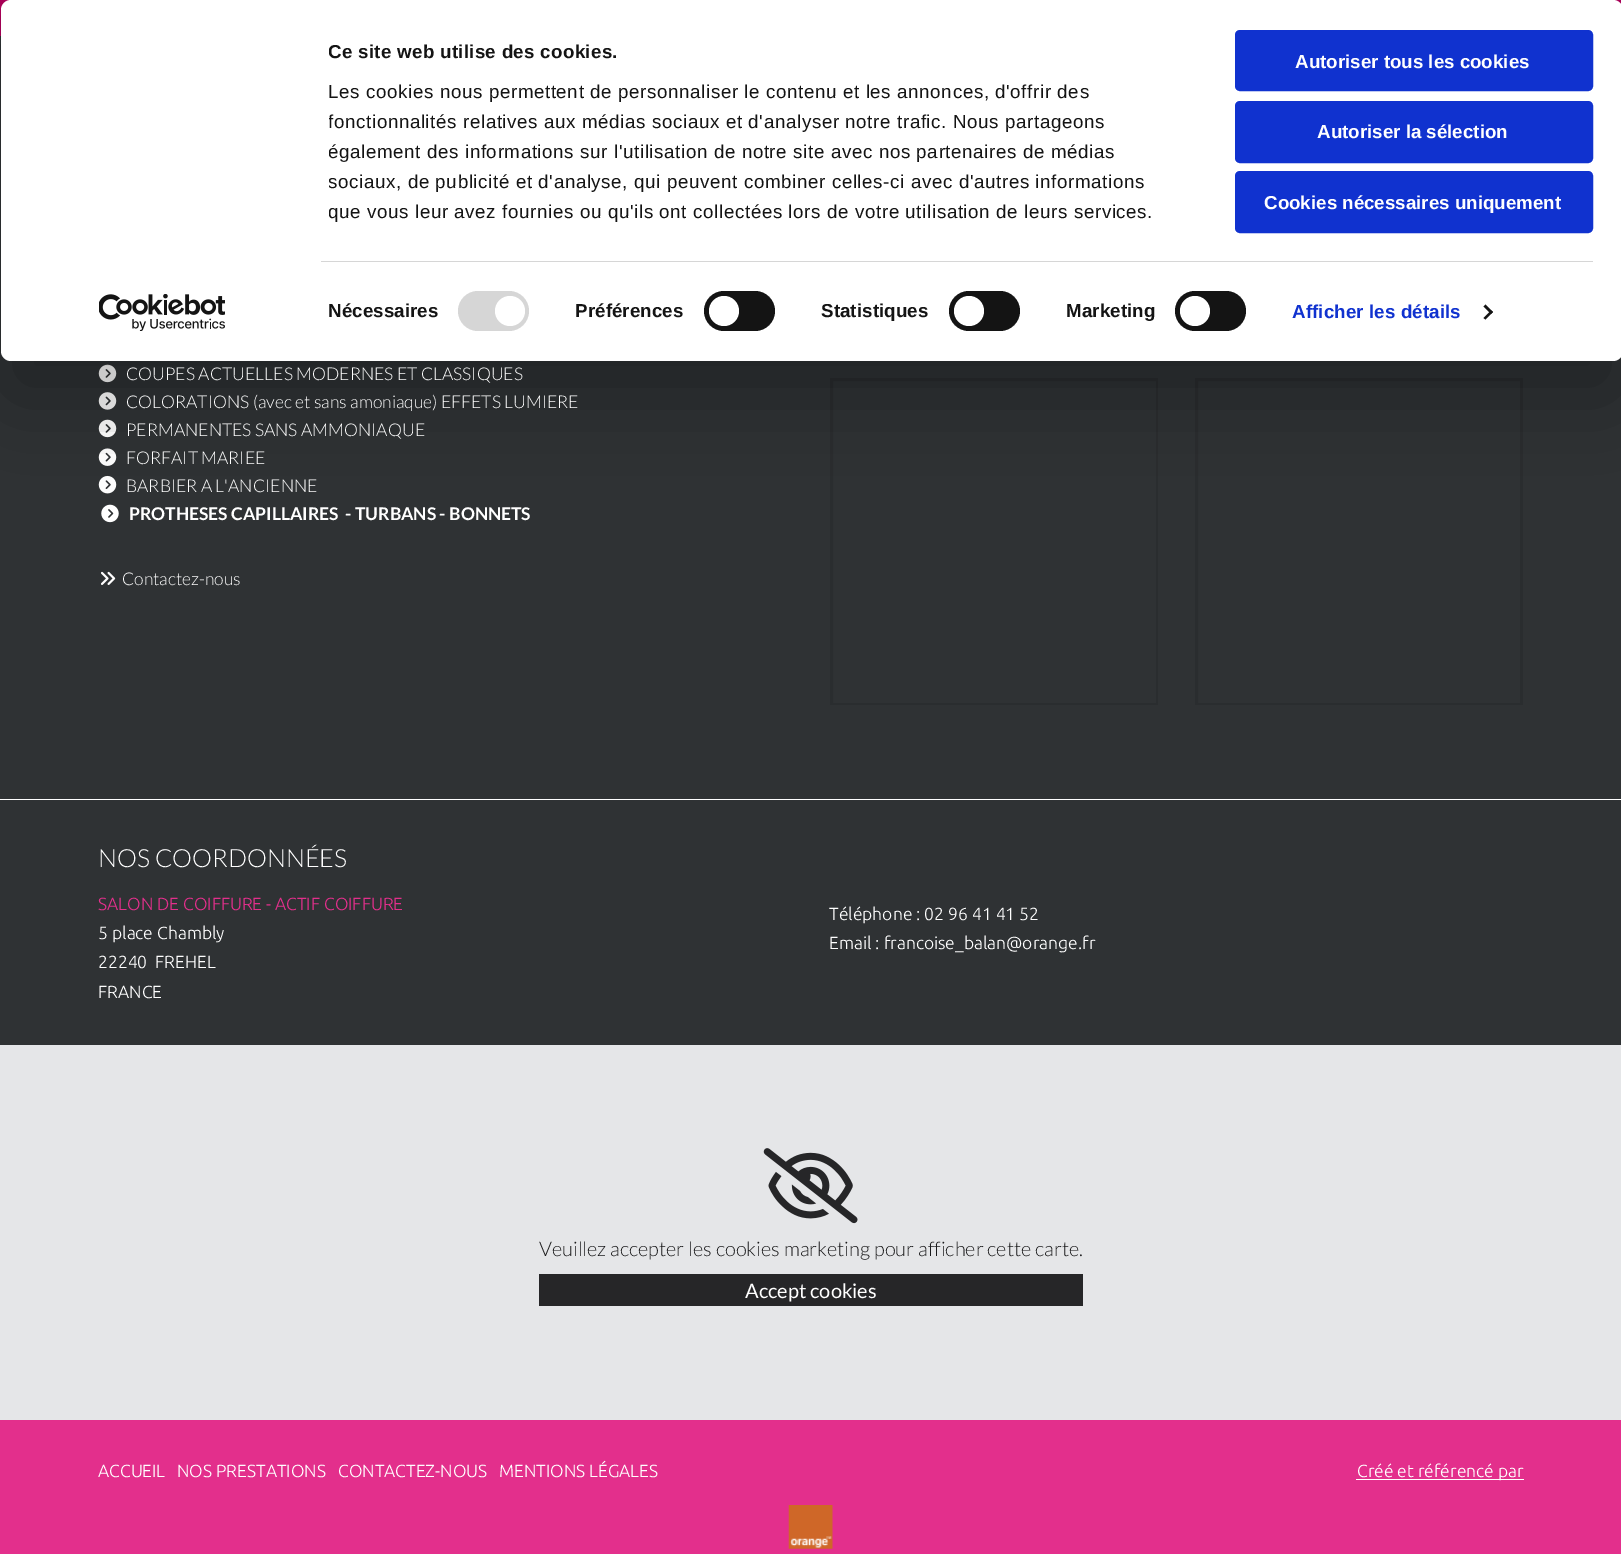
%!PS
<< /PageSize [1621 1554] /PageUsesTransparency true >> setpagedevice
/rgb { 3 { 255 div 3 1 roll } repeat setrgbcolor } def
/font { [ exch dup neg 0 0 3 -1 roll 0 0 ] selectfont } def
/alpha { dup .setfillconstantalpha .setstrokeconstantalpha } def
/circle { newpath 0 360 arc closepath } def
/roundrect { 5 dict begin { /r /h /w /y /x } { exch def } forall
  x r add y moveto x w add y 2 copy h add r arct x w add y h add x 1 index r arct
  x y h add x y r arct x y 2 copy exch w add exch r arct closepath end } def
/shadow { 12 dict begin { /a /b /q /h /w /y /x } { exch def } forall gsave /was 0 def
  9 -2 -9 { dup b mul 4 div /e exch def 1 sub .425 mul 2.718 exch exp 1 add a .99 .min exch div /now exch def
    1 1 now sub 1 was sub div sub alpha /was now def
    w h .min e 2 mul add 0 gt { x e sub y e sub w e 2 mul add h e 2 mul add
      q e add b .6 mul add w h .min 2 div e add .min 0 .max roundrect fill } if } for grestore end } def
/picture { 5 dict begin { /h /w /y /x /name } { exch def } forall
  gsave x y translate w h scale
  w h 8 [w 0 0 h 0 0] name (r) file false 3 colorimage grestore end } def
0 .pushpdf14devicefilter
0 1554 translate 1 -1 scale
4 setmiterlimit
255 255 255 rgb
0 0 1621 1554 rectfill
174 0 90 rgb
0 0 1621 36 rectfill
47 50 52 rgb
0 36 1621 763 rectfill
(img/2.rgb) 98 364 19 19 picture
(img/3.rgb) 98 392 19 18 picture
(img/2.rgb) 98 419 19 19 picture
(img/4.rgb) 98 448 19 18 picture
(img/5.rgb) 98 475 19 19 picture
(img/6.rgb) 101 504 18 19 picture
gsave
830 378 328 327 rectclip
42 45 47 rgb
3 setlinewidth
831.5 379.5 326 325 rectstroke
grestore
gsave
1195 378 328 327 rectclip
42 45 47 rgb
3 setlinewidth
1196.5 379.5 325 325 rectstroke
grestore
gsave
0 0 moveto 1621 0 lineto 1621 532 lineto 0 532 lineto closepath 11 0 moveto 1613 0 lineto 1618.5 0 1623 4.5 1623 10 curveto 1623 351 lineto 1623 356.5 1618.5 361 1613 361 curveto 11 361 lineto 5.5 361 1 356.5 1 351 curveto 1 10 lineto 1 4.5 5.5 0 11 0 curveto closepath eoclip newpath
0 0 0 rgb
1 38 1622 361 10 44 0.3 shadow
grestore
255 255 255 rgb
1 0 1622 361 10 roundrect fill
214 214 214 rgb
321 261 1272 1 rectfill
458 291 71 40 20 roundrect fill
255 255 255 rgb
510 311 15 circle fill
20 20 20 rgb
704 291 71 40 20 roundrect fill
255 255 255 rgb
724 311 15 circle fill
20 20 20 rgb
949 291 71 40 20 roundrect fill
255 255 255 rgb
969 311 15 circle fill
20 20 20 rgb
1175 291 71 40 20 roundrect fill
255 255 255 rgb
1195 311 15 circle fill
20 20 20 rgb
1485.5 304.5 moveto 1493 312 lineto 1491 314 lineto 1483.5 306.5 lineto closepath fill
1491 310.5 moveto 1493 312 lineto 1485.5 319.5 lineto 1483.5 318 lineto closepath fill
16 50 207 rgb
1236.5 31.5 355 58 3.5 roundrect gsave fill grestore
3 setlinewidth
stroke
1236.5 102.5 355 59 3.5 roundrect gsave fill grestore
stroke
1236.5 172.5 355 59 3.5 roundrect gsave fill grestore
stroke
(img/1.rgb) 99 294 126 37 picture
(img/7.rgb) 101 571 15 14 picture
47 50 52 rgb
0 800 1621 245 rectfill
229 230 232 rgb
0 1045 1621 375 rectfill
(img/8.rgb) 763 1148 95 76 picture
[
  [539 1274 544 32 38 38 40]
  [0 1420 1621 134 227 47 140]
  [1356 1479 168 1 255 255 255]
] { aload pop rgb rectfill } forall
(img/9.rgb) 788 1505 45 44 picture
gsave
329 38 870 188 rectclip
/LiberationSans-Bold 18.75 font
20 20 20 rgb
328 58 moveto 0.3 0 (Ce site web utilise des cookies.) ashow
grestore
/LiberationSans-Regular 18.75 font
20 20 20 rgb
328 98 moveto 0.62 0 (Les cookies nous permettent de personnaliser le contenu et les annonces, d'offrir des) ashow
gsave
329 38 870 188 rectclip
328 128 moveto 0.62 0 (fonctionnalités relatives aux médias sociaux et d'analyser notre trafic. Nous partageons) ashow
328 158 moveto 0.62 0 (également des informations sur l'utilisation de notre site avec nos partenaires de médias) ashow
328 188 moveto 0.62 0 (sociaux, de publicité et d'analyse, qui peuvent combiner celles-ci avec d'autres informations) ashow
328 218 moveto 0.62 0 (que vous leur avez fournies ou qu'ils ont collectées lors de votre utilisation de leurs services.) ashow
grestore
/LiberationSans-Bold 18.75 font
328 317 moveto 0.1 0 (Nécessaires) ashow
575 317 moveto 0.1 0 (Préférences) ashow
821 317 moveto 0.1 0 (Statistiques) ashow
1066 317 moveto 0.1 0 (Marketing) ashow
16 50 207 rgb
1292 318 moveto 0.1 0 (Afficher les détails) ashow
255 255 255 rgb
[
  [(Autoriser tous les cookies) 1295 68]
  [(Autoriser la sélection) 1317 138]
  [(Cookies nécessaires uniquement) 1264 209]
] { aload pop moveto show } forall
/Lato-Light 17.5 font
[
  [(COUPES ACTUELLES MODERNES ET CLASSIQUES) 126 380]
  [(COLORATIONS \(avec et sans amoniaque\) EFFETS LUMIERE) 126 408]
  [(PERMANENTES SANS AMMONIAQUE) 126 436]
  [(FORFAIT MARIEE) 126 464]
  [(BARBIER A L'ANCIENNE) 126 492]
] { aload pop moveto show } forall
/Lato-Bold 17.5 font
129 520 moveto (PROTHESES CAPILLAIRES  - TURBANS - BONNETS) show
/Lato-Light 17.5 font
122 585 moveto (Contactez-nous) show
/Lato-Light 25 font
98 867 moveto (NOS COORDONNÉES) show
/Ubuntu-Light 17.5 font
227 47 140 rgb
98 910 moveto (SALON DE COIFFURE - ACTIF COIFFURE) show
255 255 255 rgb
[
  [(5 place Chambly) 98 939]
  [(22240  FREHEL) 98 968]
  [(FRANCE) 98 998]
  [(Téléphone : 02 96 41 41 52) 829 920]
  [(Email : francoise_balan@orange.fr) 829 949]
] { aload pop moveto show } forall
/Lato-Light 20 font
26 26 27 rgb
539 1256 moveto (Veuillez accepter les cookies marketing pour afficher cette carte.) show
/Lato-Regular 20 font
255 255 255 rgb
745 1298 moveto (Accept cookies) show
/Ubuntu-Light 17.5 font
[
  [(ACCUEIL) 98 1477]
  [(NOS PRESTATIONS) 177 1477]
  [(CONTACTEZ-NOUS) 338 1477]
  [(MENTIONS LÉGALES) 499 1477]
  [(Créé et référencé par) 1357 1477]
] { aload pop moveto show } forall
.poppdf14devicefilter showpage
